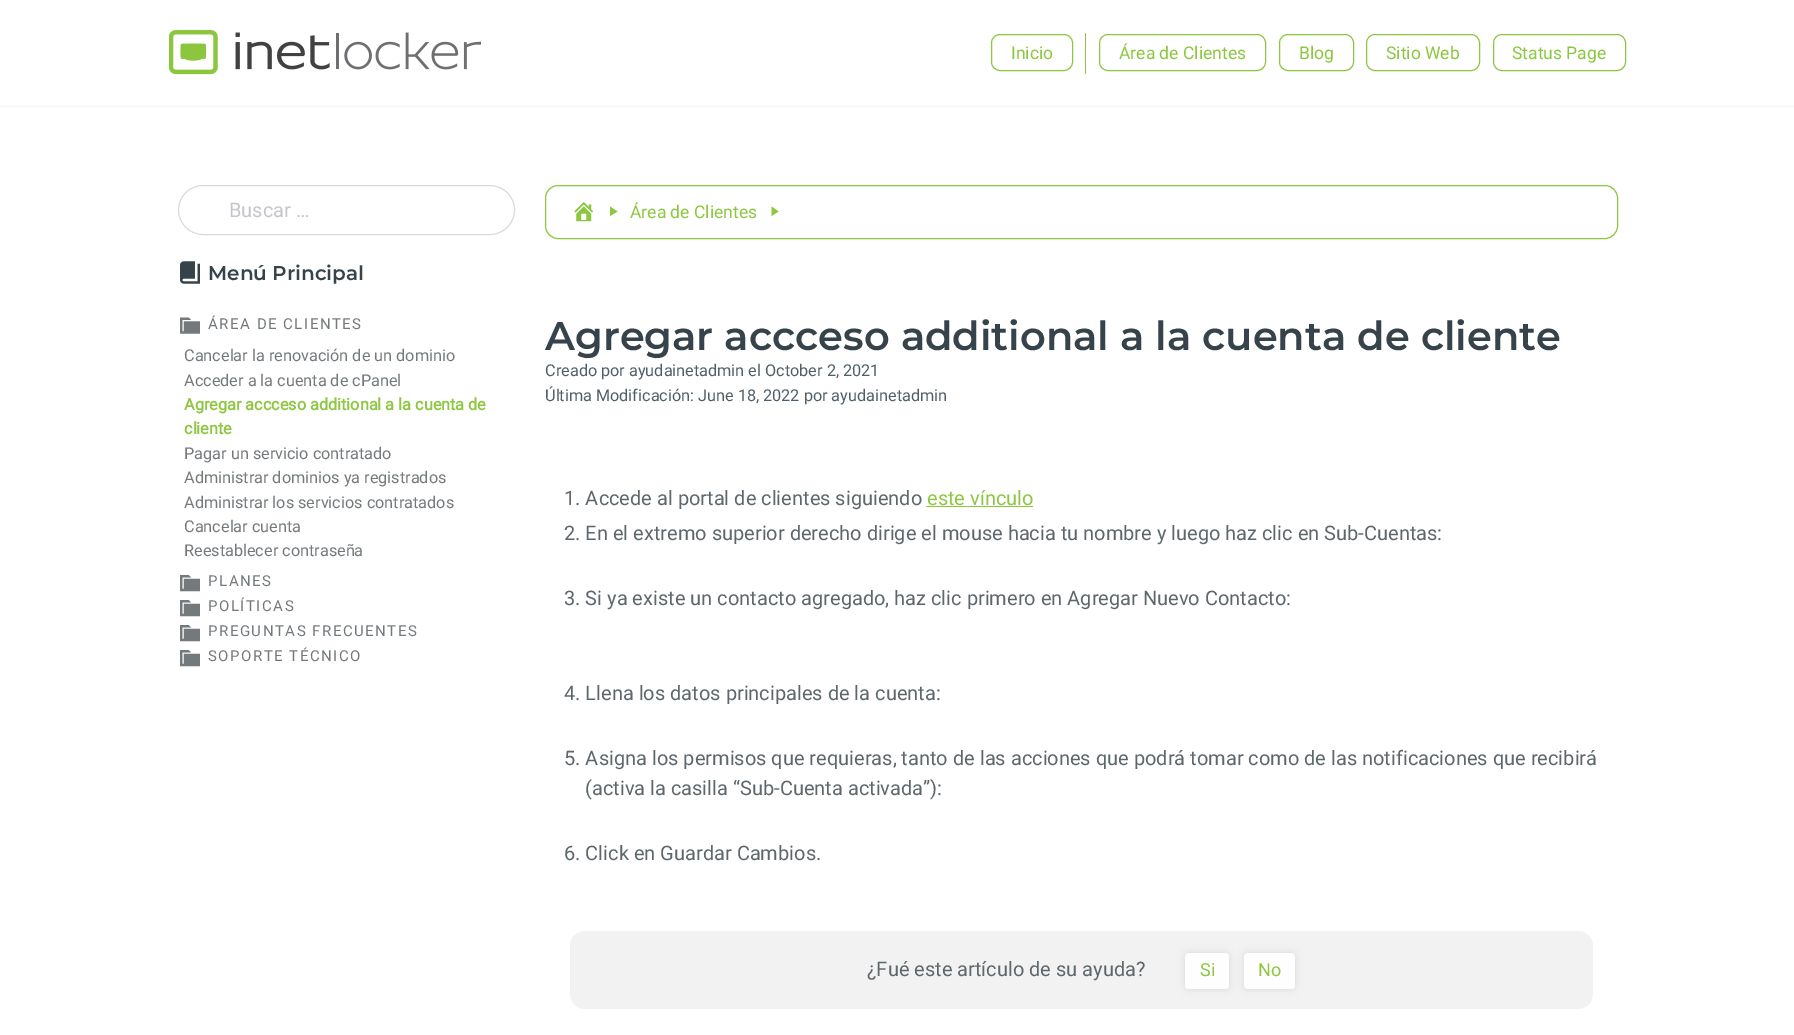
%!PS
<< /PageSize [1794 1035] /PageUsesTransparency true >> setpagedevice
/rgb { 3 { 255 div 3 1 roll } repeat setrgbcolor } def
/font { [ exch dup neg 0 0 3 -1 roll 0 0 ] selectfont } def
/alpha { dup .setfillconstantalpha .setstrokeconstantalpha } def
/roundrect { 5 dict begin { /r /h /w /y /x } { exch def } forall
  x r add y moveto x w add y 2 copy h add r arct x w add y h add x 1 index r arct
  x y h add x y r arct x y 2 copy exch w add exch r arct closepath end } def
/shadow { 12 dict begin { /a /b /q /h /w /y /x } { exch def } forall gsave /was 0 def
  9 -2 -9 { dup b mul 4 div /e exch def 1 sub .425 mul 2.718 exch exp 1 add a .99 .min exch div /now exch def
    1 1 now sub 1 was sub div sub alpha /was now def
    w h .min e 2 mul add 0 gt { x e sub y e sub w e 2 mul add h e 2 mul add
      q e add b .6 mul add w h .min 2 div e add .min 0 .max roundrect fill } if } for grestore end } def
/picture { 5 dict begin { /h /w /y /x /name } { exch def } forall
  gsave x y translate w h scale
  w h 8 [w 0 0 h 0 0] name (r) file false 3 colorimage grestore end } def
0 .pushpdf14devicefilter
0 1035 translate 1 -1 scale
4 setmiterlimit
255 255 255 rgb
0 0 1794 1035 rectfill
250 250 250 rgb
0 105 1794 3 rectfill
(img/1.rgb) 169 30 312 45 picture
141 198 63 rgb
991.5 34.5 81 36 8.5 roundrect stroke
1085 33 1 41 rectfill
1099.5 34.5 166 36 8.5 roundrect stroke
1279.5 34.5 74 36 8.5 roundrect stroke
1366.5 34.5 113 36 8.5 roundrect stroke
1493.5 34.5 132 36 8.5 roundrect stroke
219 219 219 rgb
178.5 185.5 336 49 24.5 roundrect stroke
(img/2.rgb) 180 261 20 23 picture
(img/3.rgb) 180 317 20 17 picture
(img/4.rgb) 180 575 20 17 picture
(img/4.rgb) 180 600 20 17 picture
(img/4.rgb) 180 625 20 17 picture
(img/4.rgb) 180 650 20 17 picture
141 198 63 rgb
545.5 185.5 1072 53 12.5 roundrect stroke
(img/5.rgb) 574 202 20 20 picture
610 206.5 moveto 617.5 211.5 lineto 610 216 lineto closepath fill
771.5 206.5 moveto 778.5 211.5 lineto 771.5 216 lineto closepath fill
926 506 107 1 rectfill
242 242 242 rgb
570 931 1023 78 15 roundrect fill
gsave
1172 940 moveto 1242 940 lineto 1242 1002 lineto 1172 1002 lineto closepath 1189 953 moveto 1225 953 lineto 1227 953 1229 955 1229 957 curveto 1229 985 lineto 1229 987 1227 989 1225 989 curveto 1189 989 lineto 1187 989 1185 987 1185 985 curveto 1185 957 lineto 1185 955 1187 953 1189 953 curveto closepath eoclip newpath
0 0 0 rgb
1185 953 44 36 4 4 0.1 shadow
grestore
0.9 alpha
255 255 255 rgb
1185 953 44 36 4 roundrect fill
gsave
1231 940 moveto 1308 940 lineto 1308 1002 lineto 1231 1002 lineto closepath 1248 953 moveto 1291 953 lineto 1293 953 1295 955 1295 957 curveto 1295 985 lineto 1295 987 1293 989 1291 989 curveto 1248 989 lineto 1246 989 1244 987 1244 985 curveto 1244 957 lineto 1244 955 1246 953 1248 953 curveto closepath eoclip newpath
1 alpha
0 0 0 rgb
1244 953 51 36 4 4 0.1 shadow
grestore
1244 953 51 36 4 roundrect fill
/Roboto-Regular 17.5 font
1 alpha
141 198 63 rgb
[
  [(Inicio) 1011 59]
  [(Área de Clientes) 1119 59]
  [(Blog) 1299 59]
  [(Sitio Web) 1386 59]
  [(Status Page) 1512 59]
] { aload pop moveto show } forall
/Roboto-Regular 20 font
196 198 203 rgb
229 217 moveto (Buscar …) show
/Montserrat-SemiBold 20 font
54 67 75 rgb
208 280 moveto (Menú Principal) show
/Roboto-Regular 15 font
116 121 124 rgb
208 329 moveto 1.5 0 (ÁREA DE CLIENTES) ashow
/Roboto-Regular 16.25 font
184 361 moveto (Cancelar la renovación de un dominio) show
184 386 moveto (Acceder a la cuenta de cPanel) show
/Roboto-Bold 16.25 font
141 198 63 rgb
184 410 moveto (Agregar accceso additional a la cuenta de) show
184 434 moveto (cliente) show
/Roboto-Regular 16.25 font
116 121 124 rgb
[
  [(Pagar un servicio contratado) 184 459]
  [(Administrar dominios ya registrados) 184 483]
  [(Administrar los servicios contratados) 184 508]
  [(Cancelar cuenta) 184 532]
  [(Reestablecer contraseña) 184 556]
] { aload pop moveto show } forall
/Roboto-Regular 15 font
208 586 moveto 1.5 0 (PLANES) ashow
208 611 moveto 1.5 0 (POLÍTICAS) ashow
208 636 moveto 1.5 0 (PREGUNTAS FRECUENTES) ashow
208 661 moveto 1.5 0 (SOPORTE TÉCNICO) ashow
/Roboto-Regular 17.5 font
141 198 63 rgb
630 218 moveto (Área de Clientes) show
/Montserrat-SemiBold 40 font
54 67 75 rgb
545 350 moveto (Agregar accceso additional a la cuenta de cliente) show
/Roboto-Regular 16.25 font
78 95 105 rgb
545 376 moveto (Creado por ayudainetadmin el October 2, 2021) show
545 401 moveto (Última Modificación: June 18, 2022 por ayudainetadmin) show
/Roboto-Regular 20 font
94 103 108 rgb
564 505 moveto (1. Accede al portal de clientes siguiendo) show
141 198 63 rgb
927 505 moveto (este vínculo) show
94 103 108 rgb
[
  [(2. En el extremo superior derecho dirige el mouse hacia tu nombre y luego haz clic en Sub-Cuentas:) 564 540]
  [(3. Si ya existe un contacto agregado, haz clic primero en Agregar Nuevo Contacto:) 564 605]
  [(4. Llena los datos principales de la cuenta:) 564 700]
  [(5. Asigna los permisos que requieras, tanto de las acciones que podrá tomar como de las notificaciones que recibirá) 564 765]
  [(\(activa la casilla “Sub-Cuenta activada”\):) 585 795]
  [(6. Click en Guardar Cambios.) 564 860]
  [(¿Fué este artículo de su ayuda?) 867 976]
] { aload pop moveto show } forall
/Roboto-Regular 18 font
141 198 63 rgb
1200 976 moveto (Si) show
1258 976 moveto (No) show
.poppdf14devicefilter showpage
